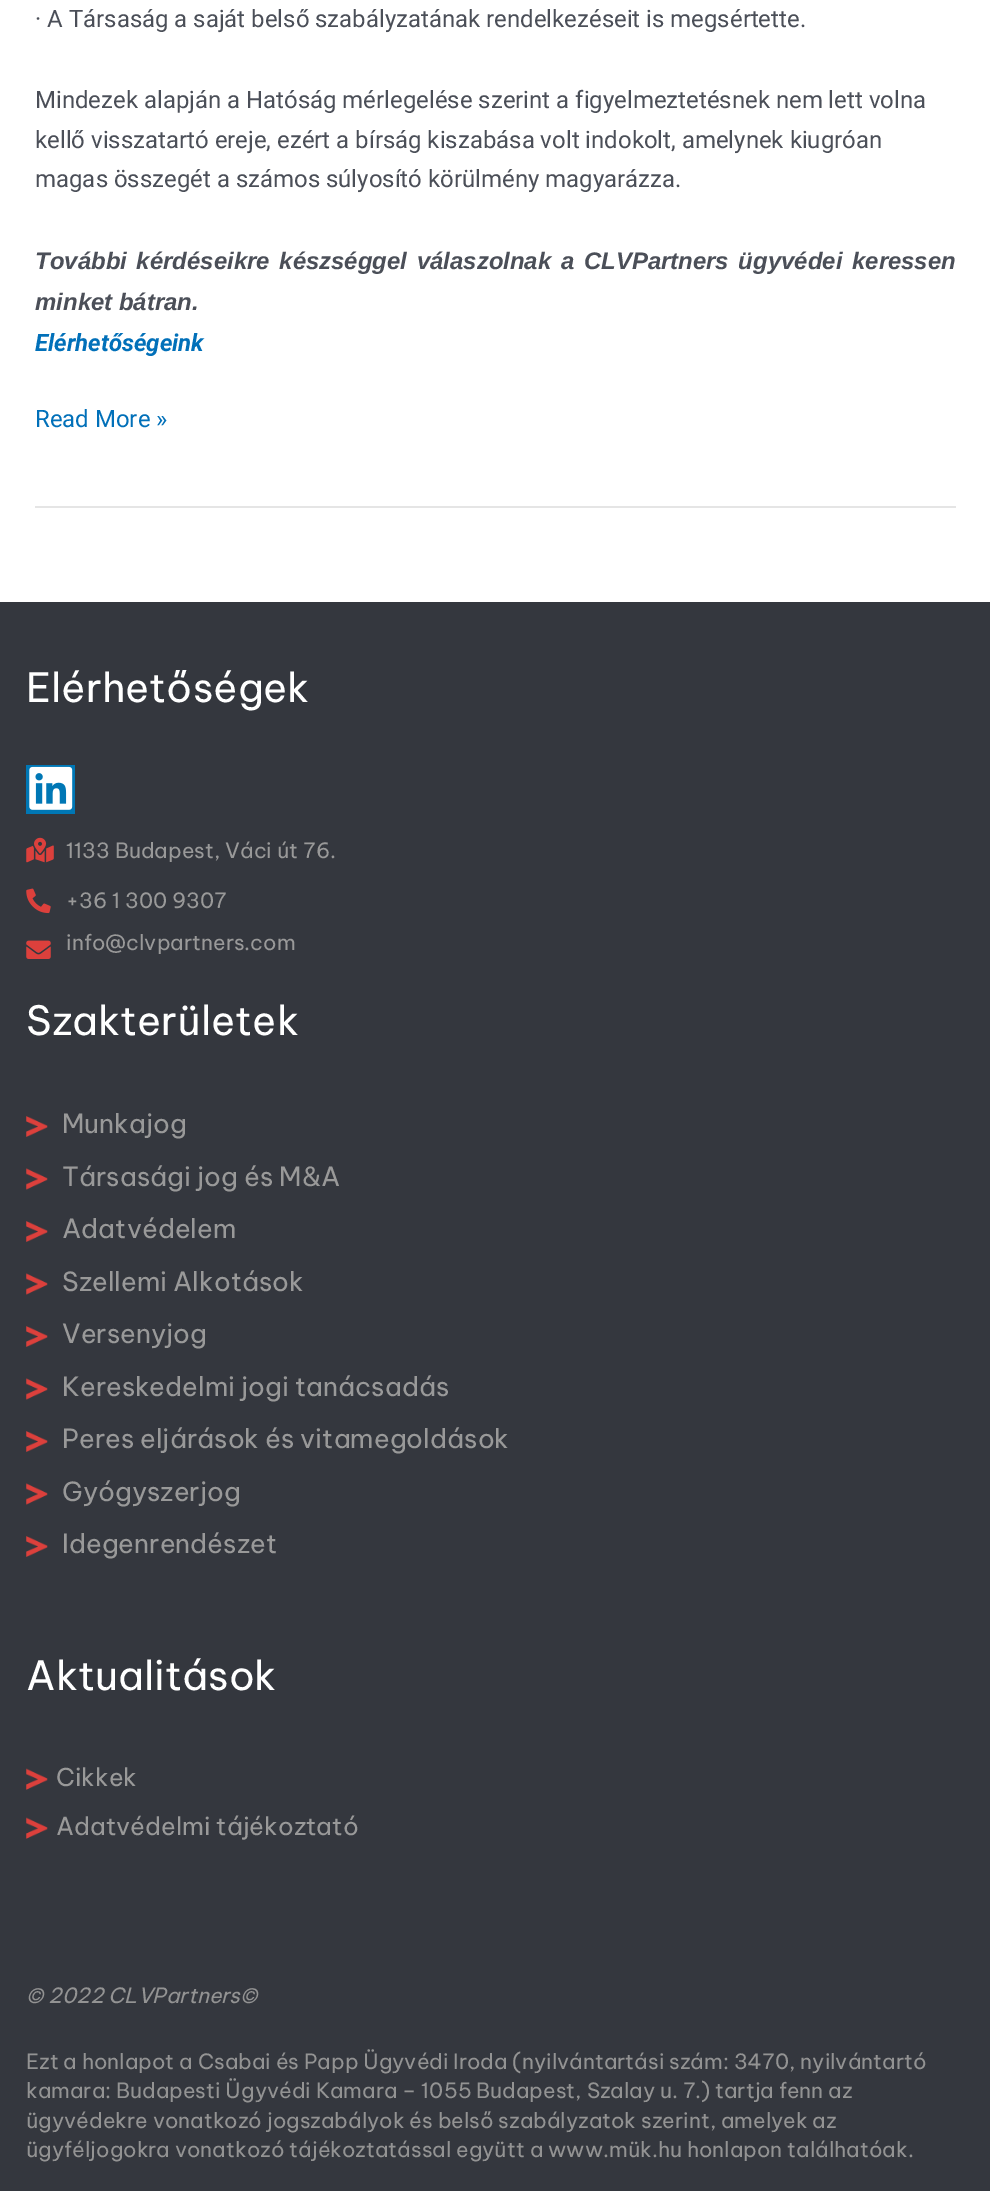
%!PS
<< /PageSize [990 2191] >> setpagedevice
/rgb { 3 { 255 div 3 1 roll } repeat setrgbcolor } def
/font { [ exch dup neg 0 0 3 -1 roll 0 0 ] selectfont } def
/picture { 5 dict begin { /h /w /y /x /name } { exch def } forall
  gsave x y translate w h scale
  w h 8 [w 0 0 h 0 0] name (r) file false 3 colorimage grestore end } def
0 2191 translate 1 -1 scale
4 setmiterlimit
255 255 255 rgb
0 0 990 2191 rectfill
[
  [35 506 921 2 229 229 229]
  [0 602 990 1589 52 55 62]
  [26 765 49 49 0 119 181]
] { aload pop rgb rectfill } forall
(img/1.rgb) 29 766 44 44 picture
(img/2.rgb) 26 837 28 26 picture
(img/3.rgb) 26 888 25 26 picture
(img/4.rgb) 26 940 25 19 picture
(img/5.rgb) 26 1116 22 21 picture
(img/6.rgb) 26 1168 22 22 picture
(img/5.rgb) 26 1221 22 21 picture
(img/6.rgb) 26 1273 22 22 picture
(img/5.rgb) 26 1326 22 21 picture
(img/6.rgb) 26 1378 22 22 picture
(img/5.rgb) 26 1431 22 21 picture
(img/6.rgb) 26 1483 22 22 picture
(img/5.rgb) 26 1536 22 21 picture
(img/7.rgb) 26 1768 22 22 picture
(img/7.rgb) 26 1817 22 22 picture
/Roboto-Regular 23.95 font
75 79 88 rgb
[
  [(· A Társaság a saját belső szabályzatának rendelkezéseit is megsértette.) 35 27]
  [(Mindezek alapján a Hatóság mérlegelése szerint a figyelmeztetésnek nem lett volna) 35 108]
  [(kellő visszatartó ereje, ezért a bírság kiszabása volt indokolt, amelynek kiugróan) 35 148]
  [(magas összegét a számos súlyosító körülmény magyarázza.) 35 187]
] { aload pop moveto show } forall
/LiberationSans-BoldItalic 23.95 font
35 269 moveto 3 0 32 (További kérdéseikre készséggel válaszolnak a CLVPartners ügyvédei keressen) widthshow
35 310 moveto (minket bátran.) show
/Roboto-BoldItalic 23.95 font
1 112 185 rgb
35 351 moveto (Elérhetőségeink) show
/Roboto-Regular 23.95 font
35 427 moveto (Read More ») show
/BeVietnamPro-Regular 40.25 font
255 255 255 rgb
26 702 moveto (Elérhetőségek) show
/BeVietnamPro-Regular 21 font
153 153 153 rgb
[
  [(1133 Budapest, Váci út 76.) 66 858]
  [(+36 1 300 9307) 66 908]
  [(info@clvpartners.com) 66 950]
] { aload pop moveto show } forall
/BeVietnamPro-Regular 40.25 font
255 255 255 rgb
26 1035 moveto (Szakterületek) show
/BeVietnamPro-Regular 26.25 font
153 153 153 rgb
[
  [(Munkajog) 62 1133]
  [(Társasági jog és M&A) 62 1186]
  [(Adatvédelem) 62 1238]
  [(Szellemi Alkotások) 62 1291]
  [(Versenyjog) 62 1343]
  [(Kereskedelmi jogi tanácsadás) 62 1396]
  [(Peres eljárások és vitamegoldások) 62 1448]
  [(Gyógyszerjog) 62 1501]
  [(Idegenrendészet) 62 1553]
] { aload pop moveto show } forall
/BeVietnamPro-Regular 40.25 font
255 255 255 rgb
26 1690 moveto (Aktualitások) show
/BeVietnamPro-Regular 24.5 font
153 153 153 rgb
56 1786 moveto (Cikkek) show
56 1835 moveto (Adatvédelmi tájékoztató) show
/BeVietnamPro-Italic 21 font
147 147 147 rgb
26 2003 moveto (© 2022 CLVPartners©) show
/BeVietnamPro-Regular 21 font
[
  [(Ezt a honlapot a Csabai és Papp Ügyvédi Iroda \(nyilvántartási szám: 3470, nyilvántartó) 26 2069]
  [(kamara: Budapesti Ügyvédi Kamara – 1055 Budapest, Szalay u. 7.\) tartja fenn az) 26 2098]
  [(ügyvédekre vonatkozó jogszabályok és belső szabályzatok szerint, amelyek az) 26 2128]
  [(ügyféljogokra vonatkozó tájékoztatással együtt a www.mük.hu honlapon találhatóak.) 26 2157]
] { aload pop moveto show } forall
showpage
